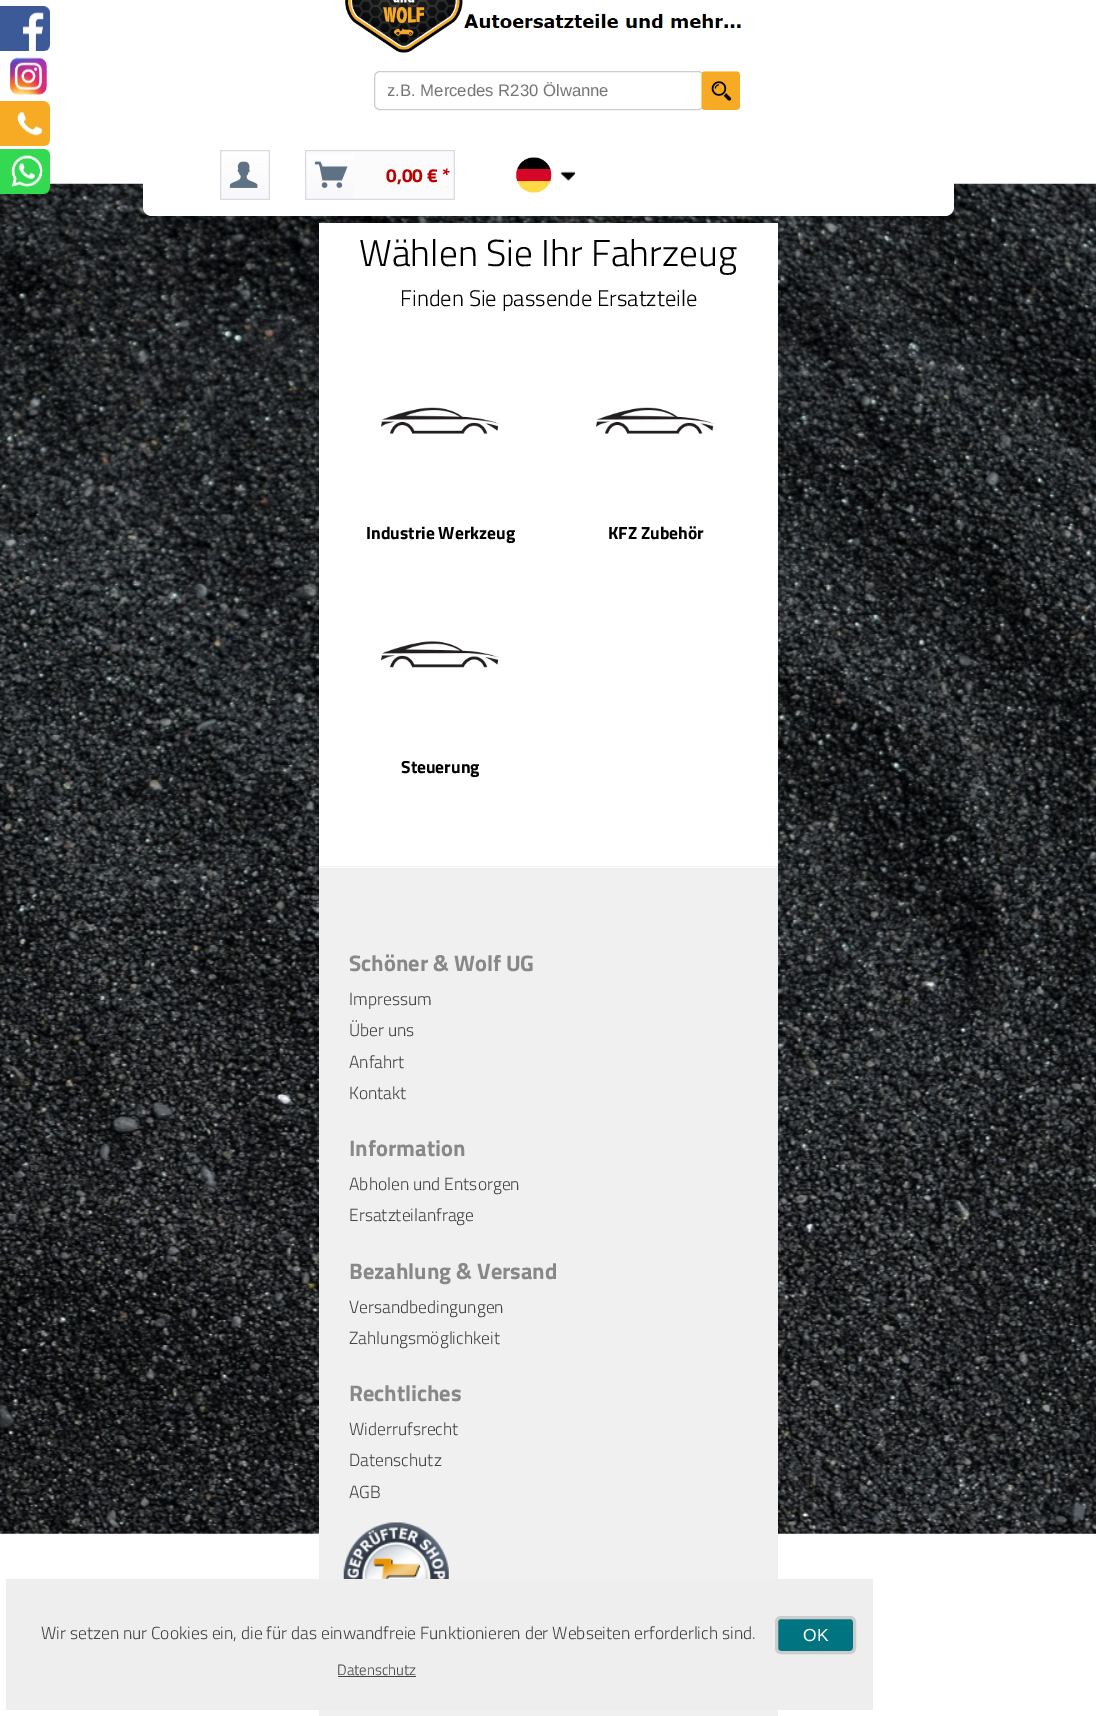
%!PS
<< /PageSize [1096 1716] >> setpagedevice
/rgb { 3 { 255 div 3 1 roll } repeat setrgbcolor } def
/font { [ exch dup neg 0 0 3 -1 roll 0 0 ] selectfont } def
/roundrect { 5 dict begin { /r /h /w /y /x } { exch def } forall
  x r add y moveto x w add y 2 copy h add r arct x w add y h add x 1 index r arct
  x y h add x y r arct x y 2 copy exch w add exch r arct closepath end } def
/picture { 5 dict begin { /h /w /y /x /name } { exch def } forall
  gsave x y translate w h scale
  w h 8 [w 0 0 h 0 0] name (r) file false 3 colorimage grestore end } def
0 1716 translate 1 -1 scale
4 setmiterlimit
255 255 255 rgb
0 0 1096 1716 rectfill
(img/1.rgb) 0 183 1096 1351 picture
143 -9 811 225 9 roundrect fill
(img/2.rgb) 345 0 397 53 picture
204 204 204 rgb
374.5 71.5 329 38 5.5 roundrect stroke
(img/3.rgb) 701 71 39 39 picture
(img/4.rgb) 220 150 50 50 picture
(img/5.rgb) 305 150 150 50 picture
(img/6.rgb) 515 157 37 36 picture
(img/7.rgb) 560 171 16 10 picture
255 255 255 rgb
319 223 459 645 rectfill
(img/8.rgb) 0 6 50 45 picture
(img/9.rgb) 10 57 37 38 picture
(img/10.rgb) 0 101 50 45 picture
(img/11.rgb) 0 149 50 45 picture
(img/12.rgb) 381 407 119 27 picture
(img/13.rgb) 596 407 119 27 picture
(img/14.rgb) 381 641 119 27 picture
[
  [320 868 458 711 240 240 240]
  [319 866 459 1 240 240 240]
  [776 866 1 2 240 240 240]
  [319 866 1 713 240 240 240]
] { aload pop rgb rectfill } forall
(img/15.rgb) 343 1522 106 57 picture
319 1710 459 6 rectfill
238 238 238 rgb
6 1579 867 131 rectfill
0 116 128 rgb
776.5 1617.5 78 35 4.5 roundrect gsave fill grestore
204 204 204 rgb
3 setlinewidth
stroke
68 68 68 rgb
338 1676 78 1 rectfill
gsave
388 81 312 19 rectclip
/LiberationSans-Regular 16.7 font
117 117 117 rgb
387 96 moveto (z.B. Mercedes R230 Ölwanne) show
grestore
/TitilliumWeb-Bold 19 font
187 0 0 rgb
386 182 moveto (0,00 € *) show
/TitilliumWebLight-Light 37.5 font
0 0 0 rgb
359 266 moveto (Wählen Sie Ihr Fahrzeug) show
/TitilliumWebLight-Light 22.5 font
400 306 moveto (Finden Sie passende Ersatzteile) show
/TitilliumWeb-Bold 17.5 font
[
  [(Industrie Werkzeug) 366 539]
  [(KFZ Zubehör) 608 539]
  [(Steuerung) 401 773]
] { aload pop moveto show } forall
/TitilliumWeb-Bold 22.5 font
136 136 136 rgb
349 971 moveto (Schöner & Wolf UG) show
/TitilliumWebLight-Light 17.5 font
68 68 68 rgb
[
  [(Impressum) 349 1005]
  [(Über uns) 349 1036]
  [(Anfahrt) 349 1068]
  [(Kontakt) 349 1099]
] { aload pop moveto show } forall
/TitilliumWeb-Bold 22.5 font
136 136 136 rgb
349 1156 moveto (Information) show
/TitilliumWebLight-Light 17.5 font
68 68 68 rgb
349 1190 moveto (Abholen und Entsorgen) show
349 1221 moveto (Ersatzteilanfrage) show
/TitilliumWeb-Bold 22.5 font
136 136 136 rgb
349 1279 moveto (Bezahlung & Versand) show
/TitilliumWebLight-Light 17.5 font
68 68 68 rgb
349 1313 moveto (Versandbedingungen) show
349 1344 moveto (Zahlungsmöglichkeit) show
/TitilliumWeb-Bold 22.5 font
136 136 136 rgb
349 1401 moveto (Rechtliches) show
/TitilliumWebLight-Light 17.5 font
68 68 68 rgb
[
  [(Widerrufsrecht) 349 1435]
  [(Datenschutz) 349 1466]
  [(AGB) 349 1498]
  [(Wir setzen nur Cookies ein, die für das einwandfreie Funktionieren der Webseiten erforderlich sind.) 41 1639]
] { aload pop moveto show } forall
/LiberationSans-Regular 17.5 font
255 255 255 rgb
803 1641 moveto (OK) show
/TitilliumWebLight-Light 15 font
68 68 68 rgb
337 1675 moveto (Datenschutz) show
showpage
